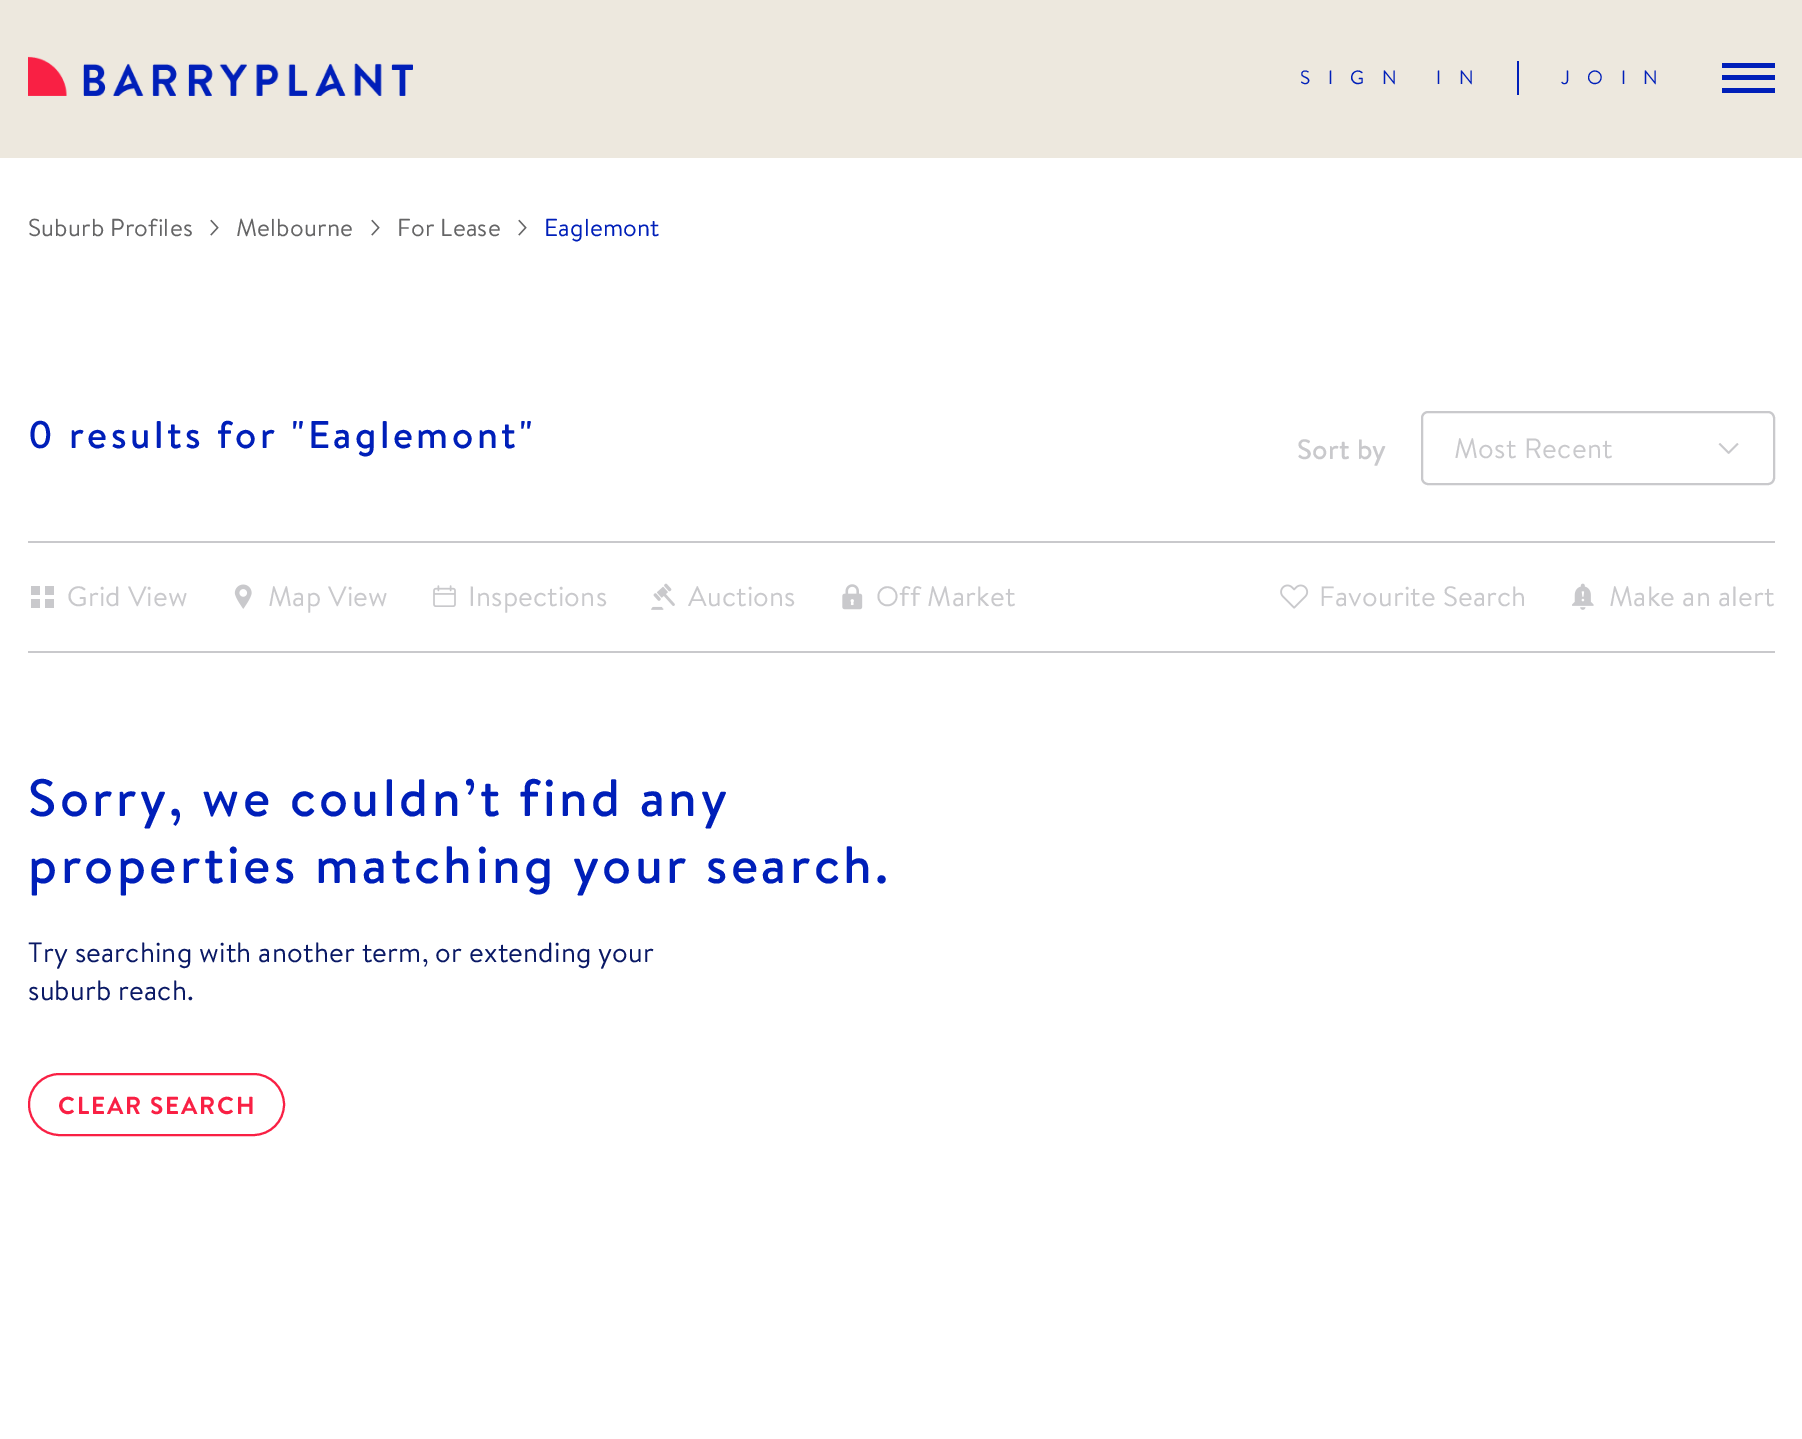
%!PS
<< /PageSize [1802 1439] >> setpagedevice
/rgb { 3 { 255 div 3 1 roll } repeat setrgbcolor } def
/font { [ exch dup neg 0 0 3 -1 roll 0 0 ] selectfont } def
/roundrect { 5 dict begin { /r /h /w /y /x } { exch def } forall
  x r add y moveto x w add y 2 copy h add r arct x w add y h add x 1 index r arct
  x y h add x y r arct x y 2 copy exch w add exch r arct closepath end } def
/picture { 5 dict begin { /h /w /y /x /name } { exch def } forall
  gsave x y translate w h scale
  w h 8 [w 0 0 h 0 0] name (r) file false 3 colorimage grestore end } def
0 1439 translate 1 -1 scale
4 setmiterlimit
255 255 255 rgb
0 0 1802 1439 rectfill
237 232 222 rgb
0 0 1802 158 rectfill
(img/1.rgb) 28 56 385 40 picture
[
  [1517 61 2 34 0 31 185]
  [1722 63 53 5 0 31 185]
  [1722 75 53 5 0 31 185]
  [1722 88 53 5 0 31 185]
] { aload pop rgb rectfill } forall
(img/2.rgb) 210 219 9 17 picture
(img/2.rgb) 371 219 9 17 picture
(img/2.rgb) 518 219 9 17 picture
201 201 204 rgb
2 setlinewidth
1422 412 352 72 6 roundrect stroke
(img/3.rgb) 1718 443 21 11 picture
[
  [28 541 1747 2 201 201 204]
  [28 651 1747 2 201 201 204]
  [31 586 9 9 201 201 204]
  [45 586 9 9 201 201 204]
  [31 599 9 9 201 201 204]
  [45 599 9 9 201 201 204]
] { aload pop rgb rectfill } forall
(img/4.rgb) 234 584 18 25 picture
(img/5.rgb) 433 585 23 22 picture
(img/6.rgb) 651 583 24 27 picture
(img/7.rgb) 842 584 21 26 picture
(img/8.rgb) 1280 584 29 25 picture
(img/9.rgb) 1572 583 22 27 picture
249 32 68 rgb
29 1074 255 61 30.5 roundrect stroke
/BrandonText-Regular 19.25 font
0 31 185 rgb
1300 84 moveto 17.5 0 (SIGN IN) ashow
1561 84 moveto 17.5 0 (JOIN) ashow
/BrandonText-Regular 24.5 font
101 101 102 rgb
28 236 moveto 0.18 0 (Suburb Profiles) ashow
236 236 moveto 0.18 0 (Melbourne) ashow
397 236 moveto 0.18 0 (For Lease) ashow
0 31 185 rgb
544 236 moveto 0.18 0 (Eaglemont) ashow
/BrandonText-Medium 38.5 font
28 448 moveto 3.5 0 (0 results for "Eaglemont") ashow
/BrandonText-Medium 28 font
201 201 204 rgb
1297 459 moveto 0.18 0 (Sort by) ashow
/BrandonText-Regular 28 font
1454 458 moveto 0.3 0 (Most Recent) ashow
67 606 moveto 0.18 0 (Grid View) ashow
268 606 moveto 0.18 0 (Map View) ashow
468 606 moveto 0.18 0 (Inspections) ashow
688 606 moveto 0.18 0 (Auctions) ashow
876 606 moveto 0.18 0 (Off Market) ashow
1319 606 moveto 0.18 0 (Favourite Search) ashow
1609 606 moveto 0.18 0 (Make an alert) ashow
/BrandonText-Medium 52.5 font
0 31 185 rgb
28 816 moveto 3.5 0 (Sorry, we couldn’t find any) ashow
28 883 moveto 3.5 0 (properties matching your search.) ashow
/BrandonText-Regular 28 font
10 25 101 rgb
28 962 moveto 0.18 0 (Try searching with another term, or extending your) ashow
28 1000 moveto 0.18 0 (suburb reach.) ashow
/BrandonText-Bold 24.5 font
249 32 68 rgb
58 1114 moveto 1.75 0 (CLEAR SEARCH) ashow
showpage
